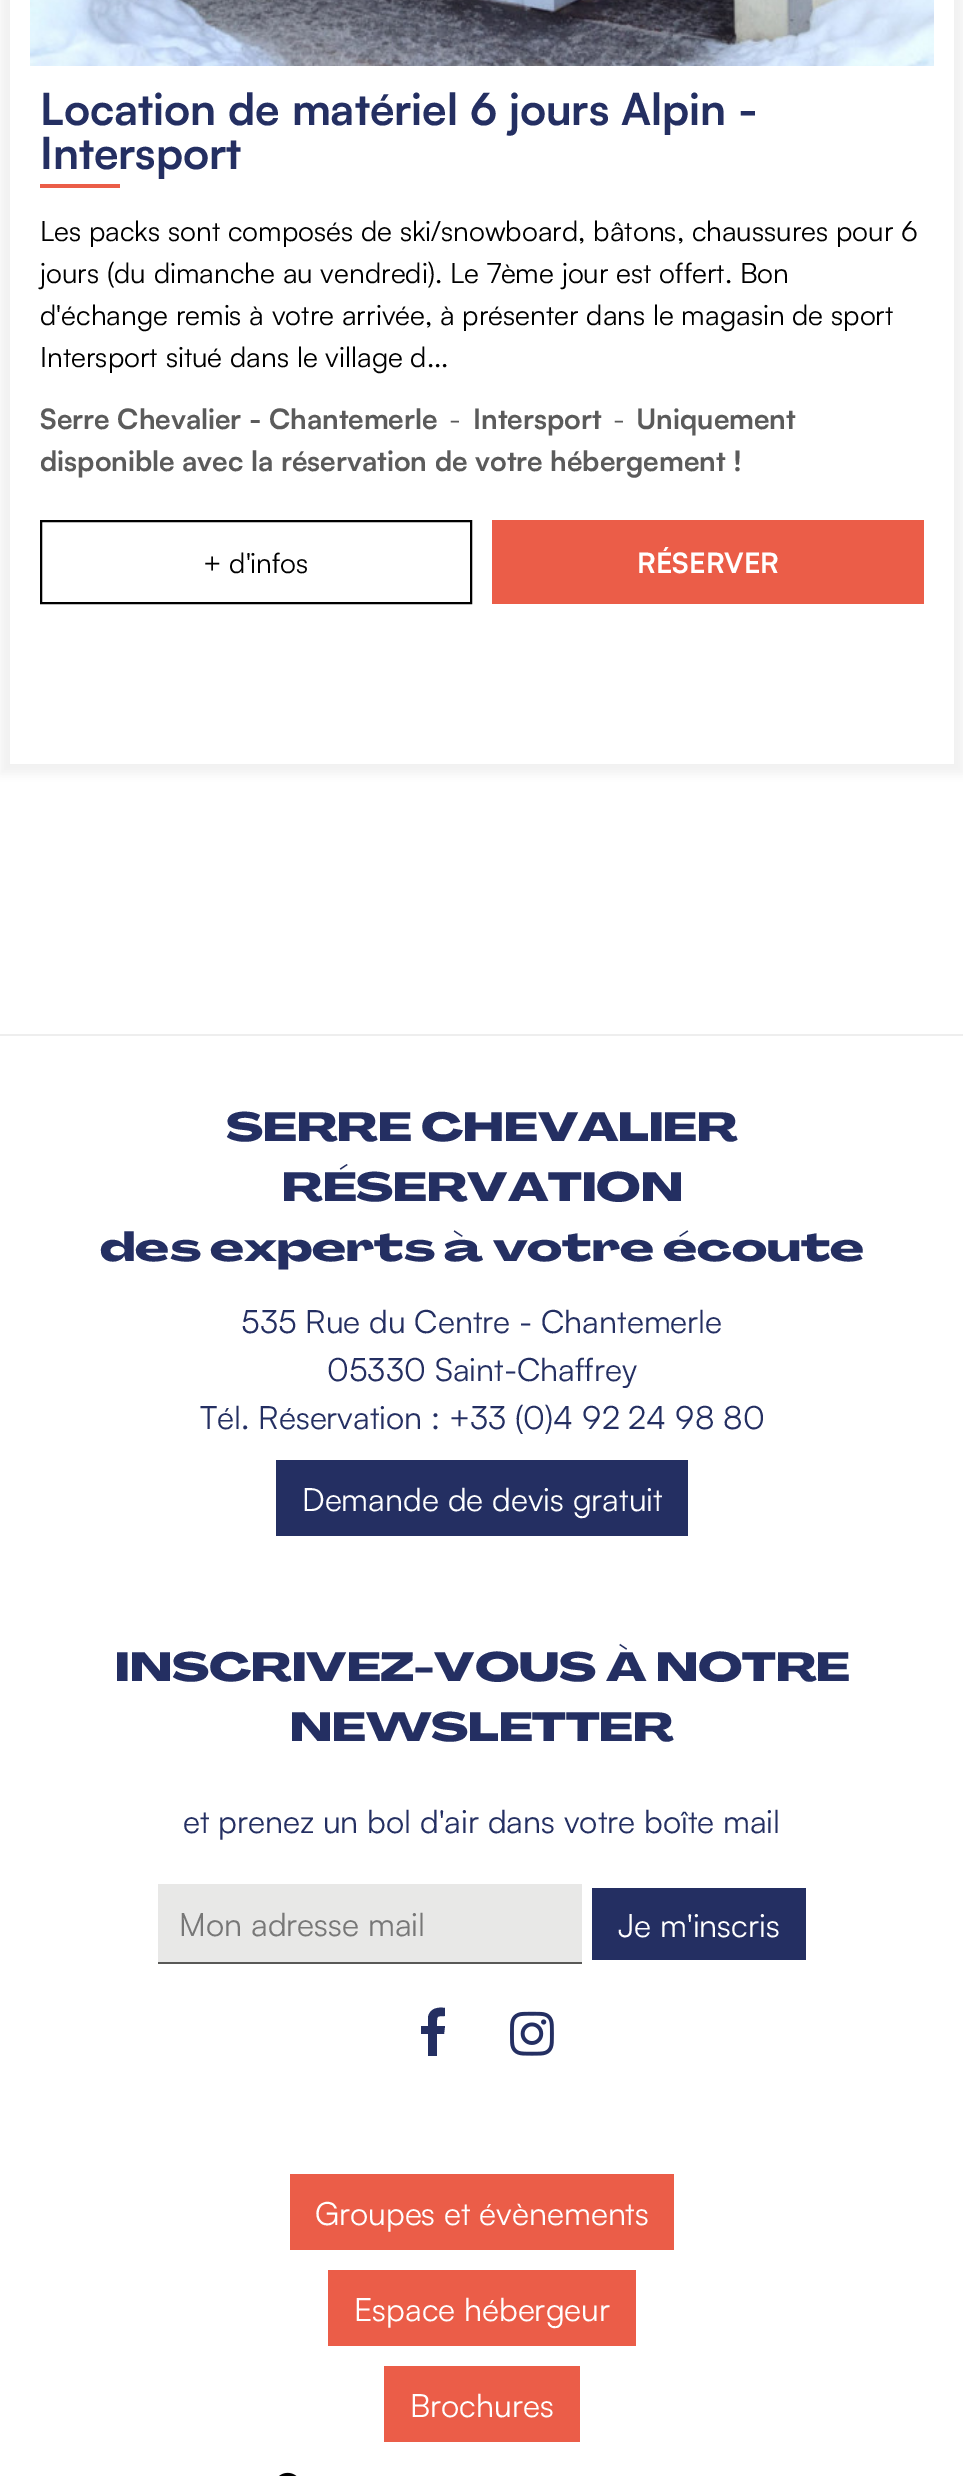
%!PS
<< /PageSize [963 2476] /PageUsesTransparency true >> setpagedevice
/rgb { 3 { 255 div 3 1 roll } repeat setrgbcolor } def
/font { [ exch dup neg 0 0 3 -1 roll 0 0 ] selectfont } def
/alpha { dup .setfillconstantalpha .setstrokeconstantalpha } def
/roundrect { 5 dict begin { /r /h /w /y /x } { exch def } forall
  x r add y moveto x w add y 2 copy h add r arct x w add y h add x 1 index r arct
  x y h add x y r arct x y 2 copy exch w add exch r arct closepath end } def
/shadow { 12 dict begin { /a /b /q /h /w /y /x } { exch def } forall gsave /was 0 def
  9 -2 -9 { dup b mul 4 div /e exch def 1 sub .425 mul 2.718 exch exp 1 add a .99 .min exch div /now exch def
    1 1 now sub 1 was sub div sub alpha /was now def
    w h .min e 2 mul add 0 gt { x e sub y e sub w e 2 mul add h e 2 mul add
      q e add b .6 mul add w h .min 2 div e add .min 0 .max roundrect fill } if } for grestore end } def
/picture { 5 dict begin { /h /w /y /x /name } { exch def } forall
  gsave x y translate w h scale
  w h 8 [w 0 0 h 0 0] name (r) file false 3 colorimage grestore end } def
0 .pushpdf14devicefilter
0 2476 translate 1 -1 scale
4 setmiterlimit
255 255 255 rgb
0 0 963 2476 rectfill
gsave
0 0 moveto 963 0 lineto 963 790 lineto 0 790 lineto closepath 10 -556 moveto 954 -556 lineto 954 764 lineto 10 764 lineto closepath eoclip newpath
227 227 227 rgb
0 -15 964 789 0 5 0.5 shadow
grestore
(img/1.rgb) 30 0 904 66 picture
235 93 72 rgb
40 184 80 4 rectfill
0 0 0 rgb
2 setlinewidth
41 521 430 82 rectstroke
[
  [492 520 432 84 235 93 72]
  [0 1034 963 2 238 238 238]
  [276 1460 412 76 36 47 98]
  [158 1884 424 78 232 232 231]
  [158 1962 424 2 89 89 87]
  [592 1888 214 72 36 47 98]
] { aload pop rgb rectfill } forall
445 2008 moveto 445 2016 lineto 436 2016 437 2016 437 2026 curveto 445 2026 lineto 444 2034 lineto 437 2034 lineto 437 2056 lineto 428 2056 lineto 428 2034 lineto 421 2034 lineto 421 2026 lineto 428 2026 lineto 428 2017 lineto 430 2008 438 2007 445 2008 curveto closepath fill
(img/2.rgb) 510 2011 44 45 picture
[
  [290 2174 384 76 235 93 72]
  [328 2270 308 76 235 93 72]
  [384 2366 196 76 235 93 72]
] { aload pop rgb rectfill } forall
(img/3.rgb) 279 2472 18 4 picture
/Satoshi-Bold 44 font
36 47 98 rgb
40 125 moveto (Location de matériel 6 jours Alpin -) show
40 169 moveto (Intersport) show
/Satoshi-Regular 28 font
0 0 0 rgb
[
  [(Les packs sont composés de ski/snowboard, bâtons, chaussures pour 6) 40 241]
  [(jours \(du dimanche au vendredi\). Le 7ème jour est offert. Bon) 40 283]
  [(d'échange remis à votre arrivée, à présenter dans le magasin de sport) 40 325]
  [(Intersport situé dans le village d...) 40 367]
] { aload pop moveto show } forall
/Satoshi-Bold 28 font
91 91 91 rgb
40 429 moveto (Serre Chevalier - Chantemerle) show
/Satoshi-Regular 28 font
449 429 moveto (-) show
/Satoshi-Bold 28 font
473 429 moveto (Intersport) show
/Satoshi-Regular 28 font
613 429 moveto (-) show
/Satoshi-Bold 28 font
636 429 moveto (Uniquement) show
40 471 moveto (disponible avec la réservation de votre hébergement !) show
/Satoshi-Regular 28 font
0 0 0 rgb
203 573 moveto (+ d'infos) show
/Satoshi-Bold 28 font
255 255 255 rgb
637 573 moveto (RÉSERVER) show
/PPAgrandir-Black 40 font
36 47 98 rgb
[
  [(SERRE CHEVALIER) 226 1141]
  [(RÉSERVATION) 282 1201]
  [(des experts à votre écoute) 100 1261]
] { aload pop moveto show } forall
/Satoshi-Regular 32 font
[
  [(535 Rue du Centre - Chantemerle) 241 1333]
  [(05330 Saint-Chaffrey) 327 1381]
  [(Tél. Réservation : +33 \(0\)4 92 24 98 80) 200 1429]
] { aload pop moveto show } forall
255 255 255 rgb
302 1511 moveto (Demande de devis gratuit) show
/PPAgrandir-Black 40 font
36 47 98 rgb
115 1681 moveto (INSCRIVEZ-VOUS À NOTRE) show
290 1741 moveto (NEWSLETTER) show
/Satoshi-Regular 32 font
183 1833 moveto (et prenez un bol d'air dans votre boîte mail) show
119 119 119 rgb
179 1936 moveto (Mon adresse mail) show
255 255 255 rgb
[
  [(Je m'inscris) 618 1937]
  [(Groupes et évènements) 315 2225]
  [(Espace hébergeur) 354 2321]
  [(Brochures) 410 2417]
] { aload pop moveto show } forall
.poppdf14devicefilter showpage
